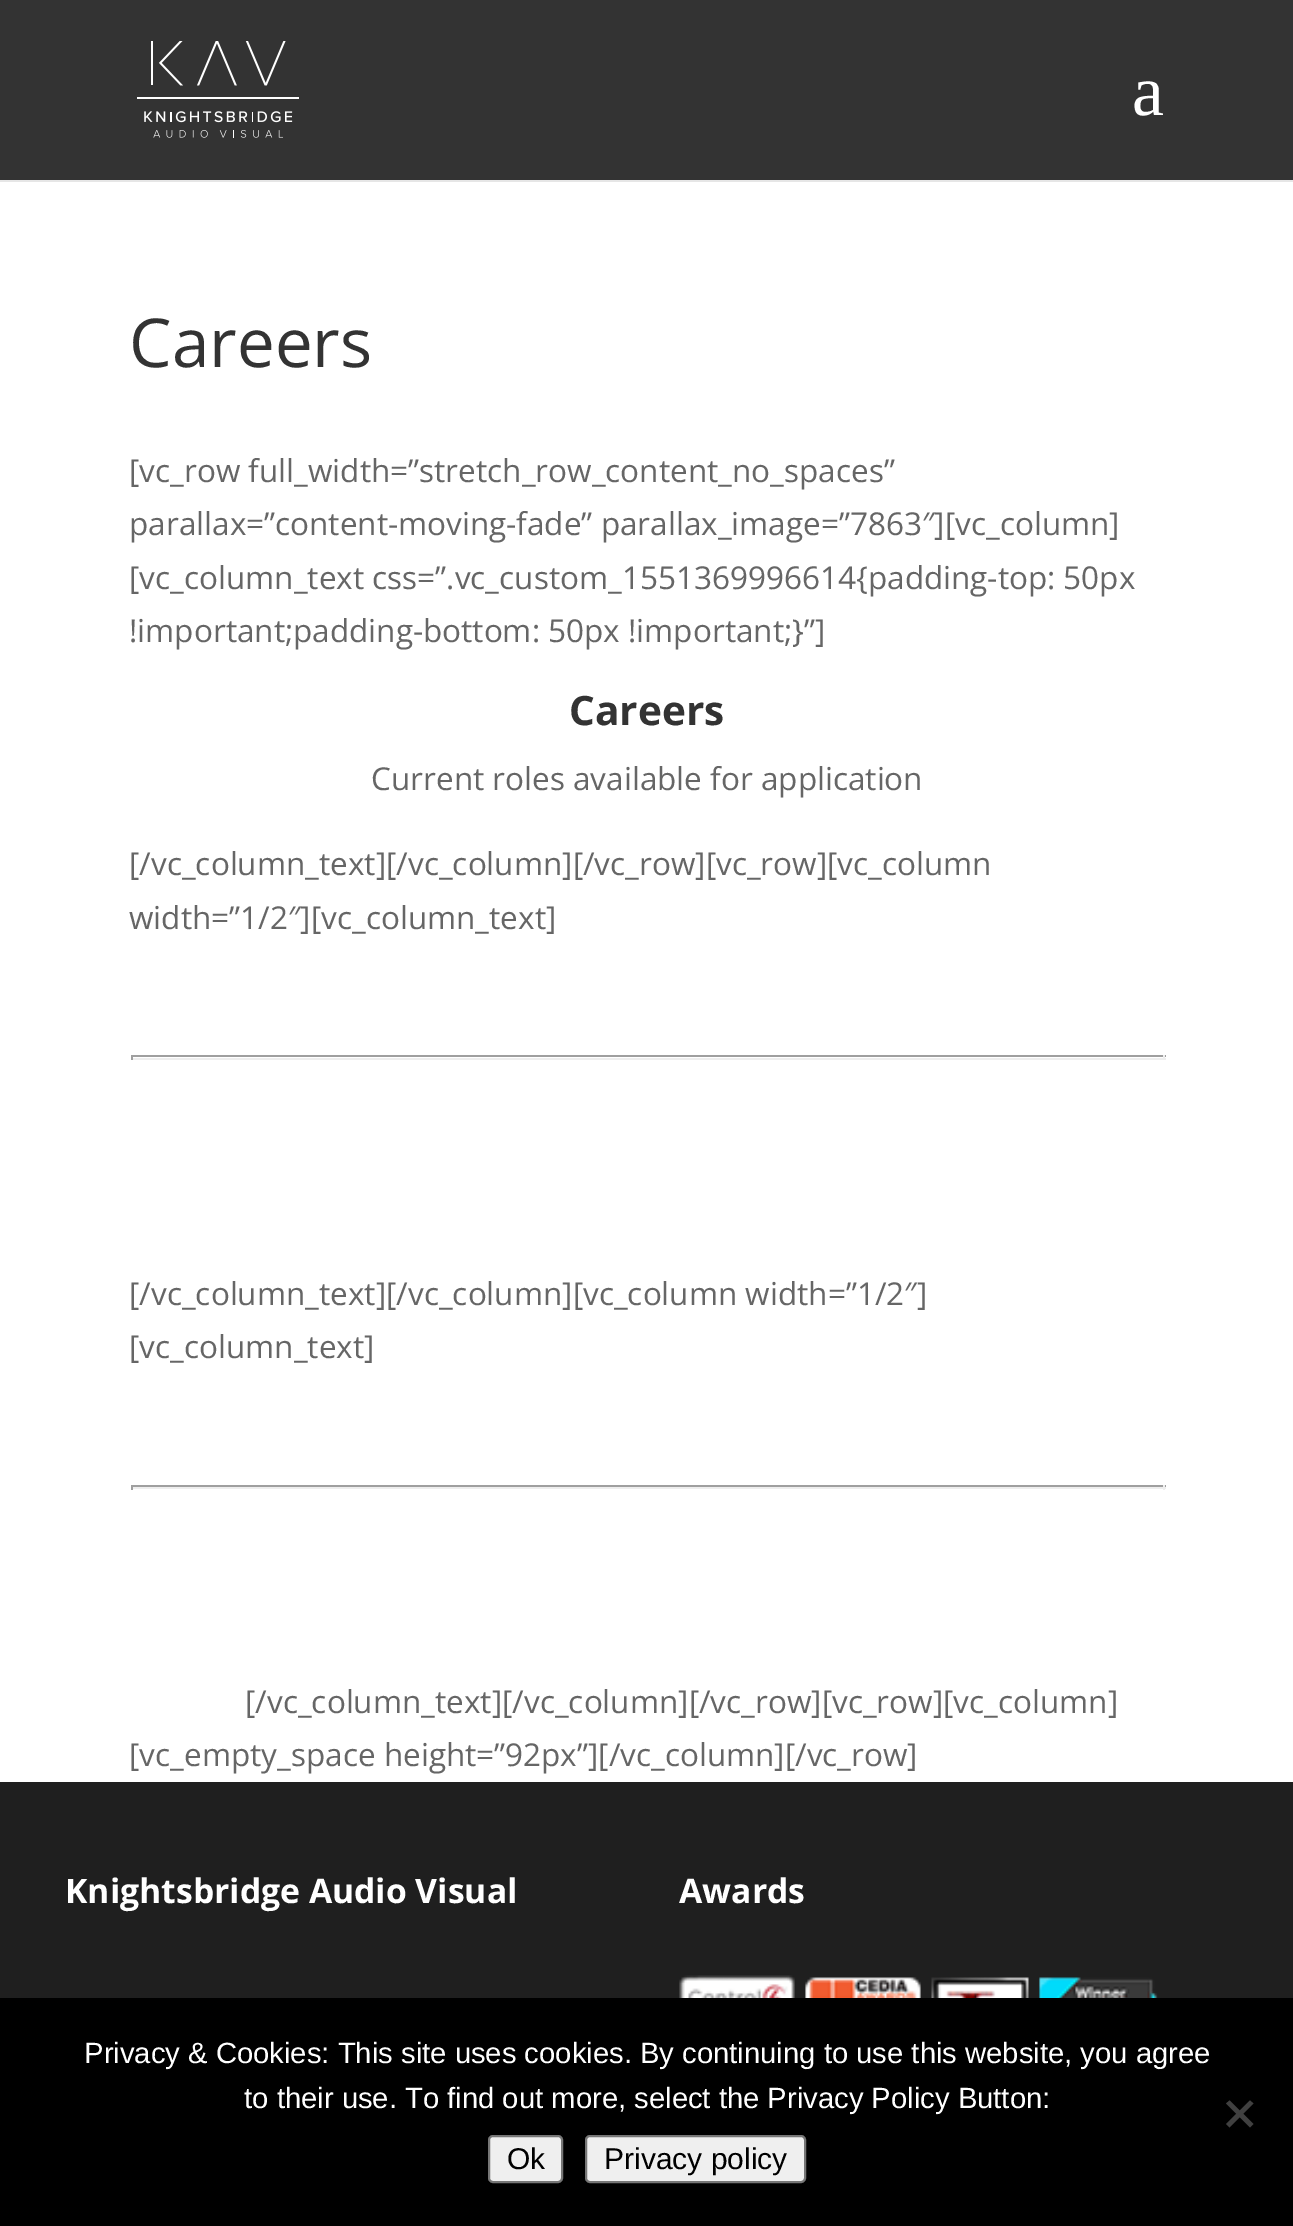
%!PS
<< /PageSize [1293 2226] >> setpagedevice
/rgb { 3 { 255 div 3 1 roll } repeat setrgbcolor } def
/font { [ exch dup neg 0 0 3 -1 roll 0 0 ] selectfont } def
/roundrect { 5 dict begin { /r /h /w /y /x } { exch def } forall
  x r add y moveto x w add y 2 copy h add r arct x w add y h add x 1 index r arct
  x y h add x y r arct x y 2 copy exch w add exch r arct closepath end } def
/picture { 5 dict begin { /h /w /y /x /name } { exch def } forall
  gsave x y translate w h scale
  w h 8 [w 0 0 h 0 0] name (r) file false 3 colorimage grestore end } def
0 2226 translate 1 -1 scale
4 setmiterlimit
255 255 255 rgb
0 0 1293 2226 rectfill
230 230 230 rgb
0 180 moveto 0 182 lineto 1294 182 lineto 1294 2 lineto 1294 180 lineto closepath fill
51 51 51 rgb
0 0 1293 180 rectfill
(img/1.rgb) 137 41 162 97 picture
[
  [131 1055 1035 2 159 159 159]
  [1163 1055 2 5 238 238 238]
  [131 1058 1035 2 238 238 238]
  [131 1055 2 5 159 159 159]
  [131 1485 1035 2 159 159 159]
  [1163 1485 2 5 238 238 238]
  [131 1487 1035 2 238 238 238]
  [131 1485 2 5 159 159 159]
  [0 1782 1293 216 31 31 31]
] { aload pop rgb rectfill } forall
(img/2.rgb) 679 1975 479 23 picture
0 0 0 rgb
0 1998 1293 228 rectfill
64 64 64 rgb
1250 2100.5 moveto 1253.5 2103.5 lineto 1229.5 2127.5 lineto 1226 2124 lineto closepath fill
1226 2103.5 moveto 1229.5 2100.5 lineto 1253.5 2124 lineto 1250 2127.5 lineto closepath fill
239 239 239 rgb
489 2136 73 46 4 roundrect gsave fill grestore
118 118 118 rgb
2 setlinewidth
stroke
239 239 239 rgb
586 2136 219 46 4 roundrect gsave fill grestore
118 118 118 rgb
stroke
/LiberationSerif-Regular 72 font
255 255 255 rgb
1132 115 moveto (a) show
/OpenSans-Regular 67.5 font
51 51 51 rgb
129 367 moveto (Careers) show
/OpenSans-Regular 31.5 font
102 102 102 rgb
[
  [([vc_row full_width=”stretch_row_content_no_spaces”) 129 482]
  [(parallax=”content-moving-fade” parallax_image=”7863″][vc_column]) 129 535]
  [([vc_column_text css=”.vc_custom_1551369996614{padding-top: 50px) 129 589]
  [(!important;padding-bottom: 50px !important;}”]) 129 642]
] { aload pop moveto show } forall
/OpenSans-Bold 40.5 font
51 51 51 rgb
569 725 moveto (Careers) show
/OpenSans-Regular 31.5 font
102 102 102 rgb
[
  [(Current roles available for application) 371 790]
  [([/vc_column_text][/vc_column][/vc_row][vc_row][vc_column) 129 875]
  [(width=”1/2″][vc_column_text]) 129 929]
  [([/vc_column_text][/vc_column][vc_column width=”1/2″]) 129 1305]
  [([vc_column_text]) 129 1358]
  [([/vc_column_text][/vc_column][/vc_row][vc_row][vc_column]) 245 1713]
  [([vc_empty_space height=”92px”][/vc_column][/vc_row]) 129 1766]
] { aload pop moveto show } forall
/OpenSans-Bold 33.75 font
255 255 255 rgb
65 1903 moveto (Knightsbridge Audio Visual) show
679 1903 moveto (Awards) show
/LiberationSans-Regular 29.25 font
84 2063 moveto (Privacy & Cookies: This site uses cookies. By continuing to use this website, you agree) show
244 2108 moveto (to their use. To find out more, select the Privacy Policy Button:) show
/LiberationSans-Regular 30 font
0 0 0 rgb
507 2169 moveto (Ok) show
604 2169 moveto (Privacy policy) show
showpage
